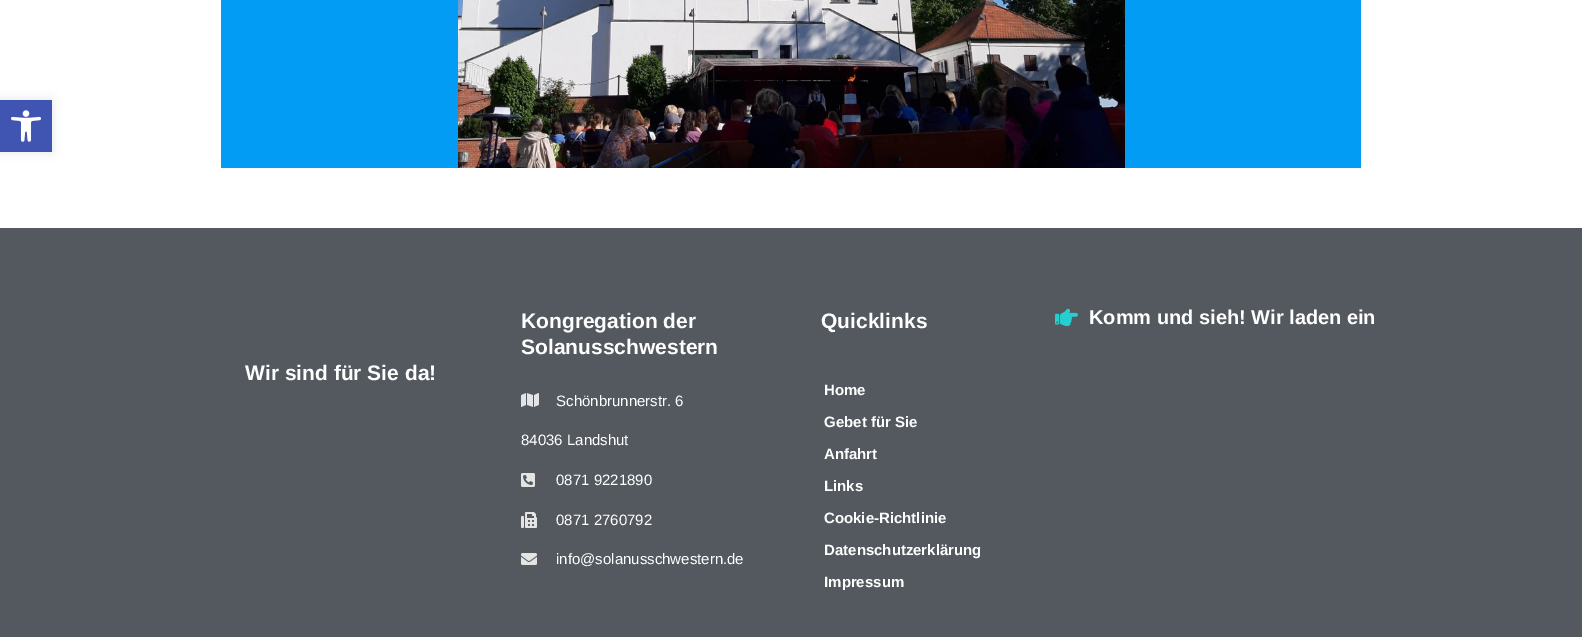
%!PS
<< /PageSize [1582 637] /PageUsesTransparency true >> setpagedevice
/rgb { 3 { 255 div 3 1 roll } repeat setrgbcolor } def
/font { [ exch dup neg 0 0 3 -1 roll 0 0 ] selectfont } def
/alpha { dup .setfillconstantalpha .setstrokeconstantalpha } def
/roundrect { 5 dict begin { /r /h /w /y /x } { exch def } forall
  x r add y moveto x w add y 2 copy h add r arct x w add y h add x 1 index r arct
  x y h add x y r arct x y 2 copy exch w add exch r arct closepath end } def
/shadow { 12 dict begin { /a /b /q /h /w /y /x } { exch def } forall gsave /was 0 def
  9 -2 -9 { dup b mul 4 div /e exch def 1 sub .425 mul 2.718 exch exp 1 add a .99 .min exch div /now exch def
    1 1 now sub 1 was sub div sub alpha /was now def
    w h .min e 2 mul add 0 gt { x e sub y e sub w e 2 mul add h e 2 mul add
      q e add b .6 mul add w h .min 2 div e add .min 0 .max roundrect fill } if } for grestore end } def
/picture { 5 dict begin { /h /w /y /x /name } { exch def } forall
  gsave x y translate w h scale
  w h 8 [w 0 0 h 0 0] name (r) file false 3 colorimage grestore end } def
0 .pushpdf14devicefilter
0 637 translate 1 -1 scale
4 setmiterlimit
255 255 255 rgb
0 0 1582 637 rectfill
0 0 0 rgb
0 100 52 52 0 5 0.1 shadow
64 84 178 rgb
0 100 52 52 rectfill
(img/1.rgb) 11 110 30 32 picture
2 156 245 rgb
221 0 1140 168 rectfill
(img/2.rgb) 458 0 667 168 picture
84 89 95 rgb
0 228 1582 409 rectfill
(img/3.rgb) 521 393 18 14 picture
(img/4.rgb) 521 473 14 14 picture
(img/5.rgb) 521 512 16 16 picture
(img/6.rgb) 521 553 16 12 picture
(img/7.rgb) 1055 308 23 18 picture
/LiberationSans-Bold 21 font
255 255 255 rgb
[
  [(Wir sind für Sie da!) 245 380]
  [(Kongregation der) 521 328]
  [(Solanusschwestern) 521 354]
] { aload pop moveto show } forall
/LiberationSans-Regular 15 font
[
  [(Schönbrunnerstr. 6) 556 406]
  [(84036 Landshut) 521 445]
  [(0871 9221890) 556 485]
  [(0871 2760792) 556 525]
  [(info@solanusschwestern.de) 556 564]
] { aload pop moveto show } forall
/LiberationSans-Bold 21 font
821 328 moveto (Quicklinks) show
/LiberationSans-Bold 15 font
[
  [(Home) 824 395]
  [(Gebet für Sie) 824 427]
  [(Anfahrt) 824 459]
  [(Links) 824 491]
  [(Cookie-Richtlinie) 824 523]
  [(Datenschutzerklärung) 824 555]
  [(Impressum) 824 587]
] { aload pop moveto show } forall
/LiberationSans-Bold 20 font
1089 324 moveto (Komm und sieh! Wir laden ein) show
.poppdf14devicefilter showpage
